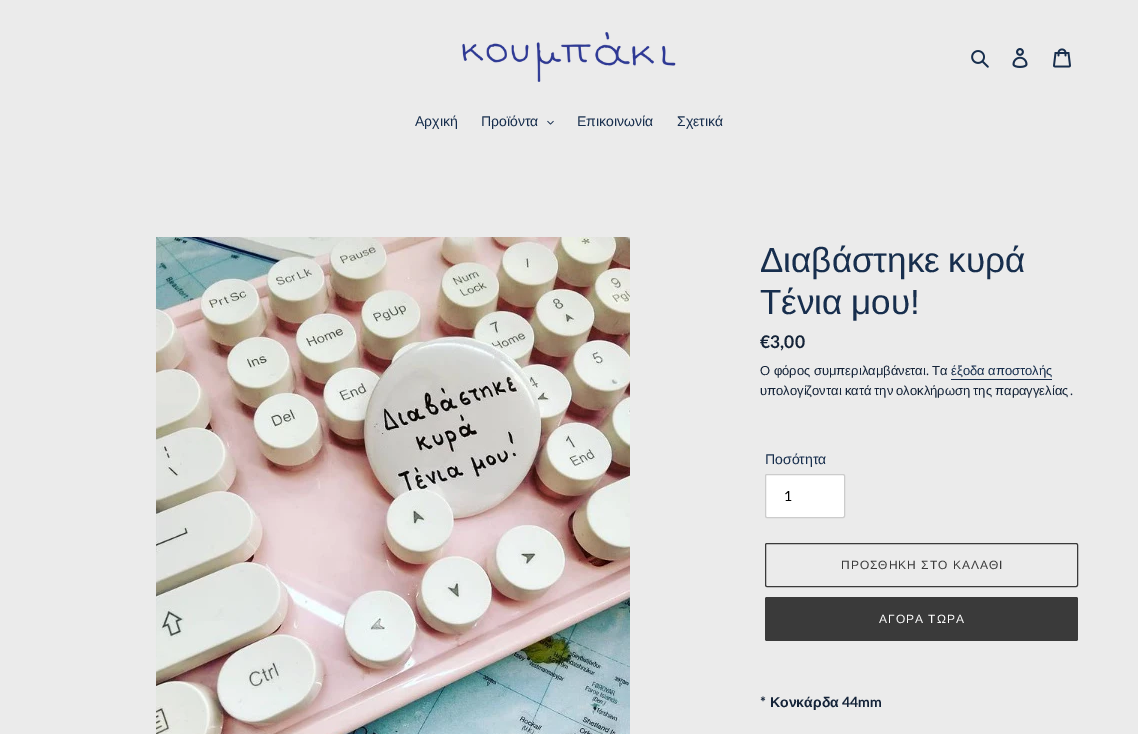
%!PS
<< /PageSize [1138 734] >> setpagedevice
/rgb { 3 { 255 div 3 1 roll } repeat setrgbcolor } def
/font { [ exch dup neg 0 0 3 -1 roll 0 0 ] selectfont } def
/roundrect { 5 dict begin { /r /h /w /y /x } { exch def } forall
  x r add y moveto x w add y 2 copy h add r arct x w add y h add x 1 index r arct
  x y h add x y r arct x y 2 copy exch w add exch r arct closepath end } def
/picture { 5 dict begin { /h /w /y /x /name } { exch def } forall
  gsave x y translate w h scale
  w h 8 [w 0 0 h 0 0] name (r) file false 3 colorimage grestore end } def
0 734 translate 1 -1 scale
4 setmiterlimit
235 235 235 rgb
0 0 1138 734 rectfill
(img/1.rgb) 462 32 214 50 picture
(img/2.rgb) 971 50 18 18 picture
(img/3.rgb) 1012 48 16 20 picture
(img/4.rgb) 1053 48 18 20 picture
(img/5.rgb) 547 120 7 5 picture
(img/6.rgb) 156 237 474 497 picture
23 46 77 rgb
951 379 101 1 rectfill
255 255 255 rgb
765.5 474.5 79 43 1.5 roundrect gsave fill grestore
204 204 204 rgb
stroke
58 58 58 rgb
765.5 543.5 312 43 1.5 roundrect stroke
765 597 313 44 2 roundrect fill
/LiberationSans-Regular 14 font
23 46 77 rgb
[
  [(Αρχική) 415 126]
  [(Προϊόντα) 481 126]
  [(Επικοινωνία) 577 126]
  [(Σχετικά) 677 126]
] { aload pop moveto show } forall
/LiberationSans-Regular 35 font
760 272 moveto -1 0 32 (Διαβάστηκε κυρά) widthshow
760 314 moveto -1 0 32 (Τένια μου!) widthshow
/Lato-Bold 17.5 font
20 35 56 rgb
760 348 moveto (€3,00) show
/LiberationSans-Regular 13 font
760 375 moveto (Ο φόρος συμπεριλαμβάνεται) show
/Lato-Regular 13 font
926 375 moveto (.) show
/LiberationSans-Regular 13 font
932 375 moveto (Τα) show
23 46 77 rgb
951 375 moveto (έξοδα αποστολής) show
20 35 56 rgb
760 395 moveto -0.5 0 32 (υπολογίζονται κατά την ολοκλήρωση της παραγγελίας) widthshow
/Lato-Regular 13 font
1070 395 moveto (.) show
/LiberationSans-Regular 14 font
23 46 77 rgb
765 464 moveto (Ποσότητα) show
/Lato-Regular 14 font
0 0 0 rgb
784 501 moveto (1) show
/LiberationSans-Regular 12 font
58 58 58 rgb
841 569 moveto 1 0 (ΠΡΟΣΘΗΚΗ ΣΤΟ ΚΑΛΑΘΙ) ashow
255 255 255 rgb
879 623 moveto 1 0 (ΑΓΟΡΑ ΤΩΡΑ) ashow
/Lato-Bold 14 font
20 35 56 rgb
760 707 moveto (*) show
/LiberationSans-Bold 14 font
770 707 moveto (Κονκάρδα) show
/Lato-Bold 14 font
842 707 moveto (44mm) show
showpage
